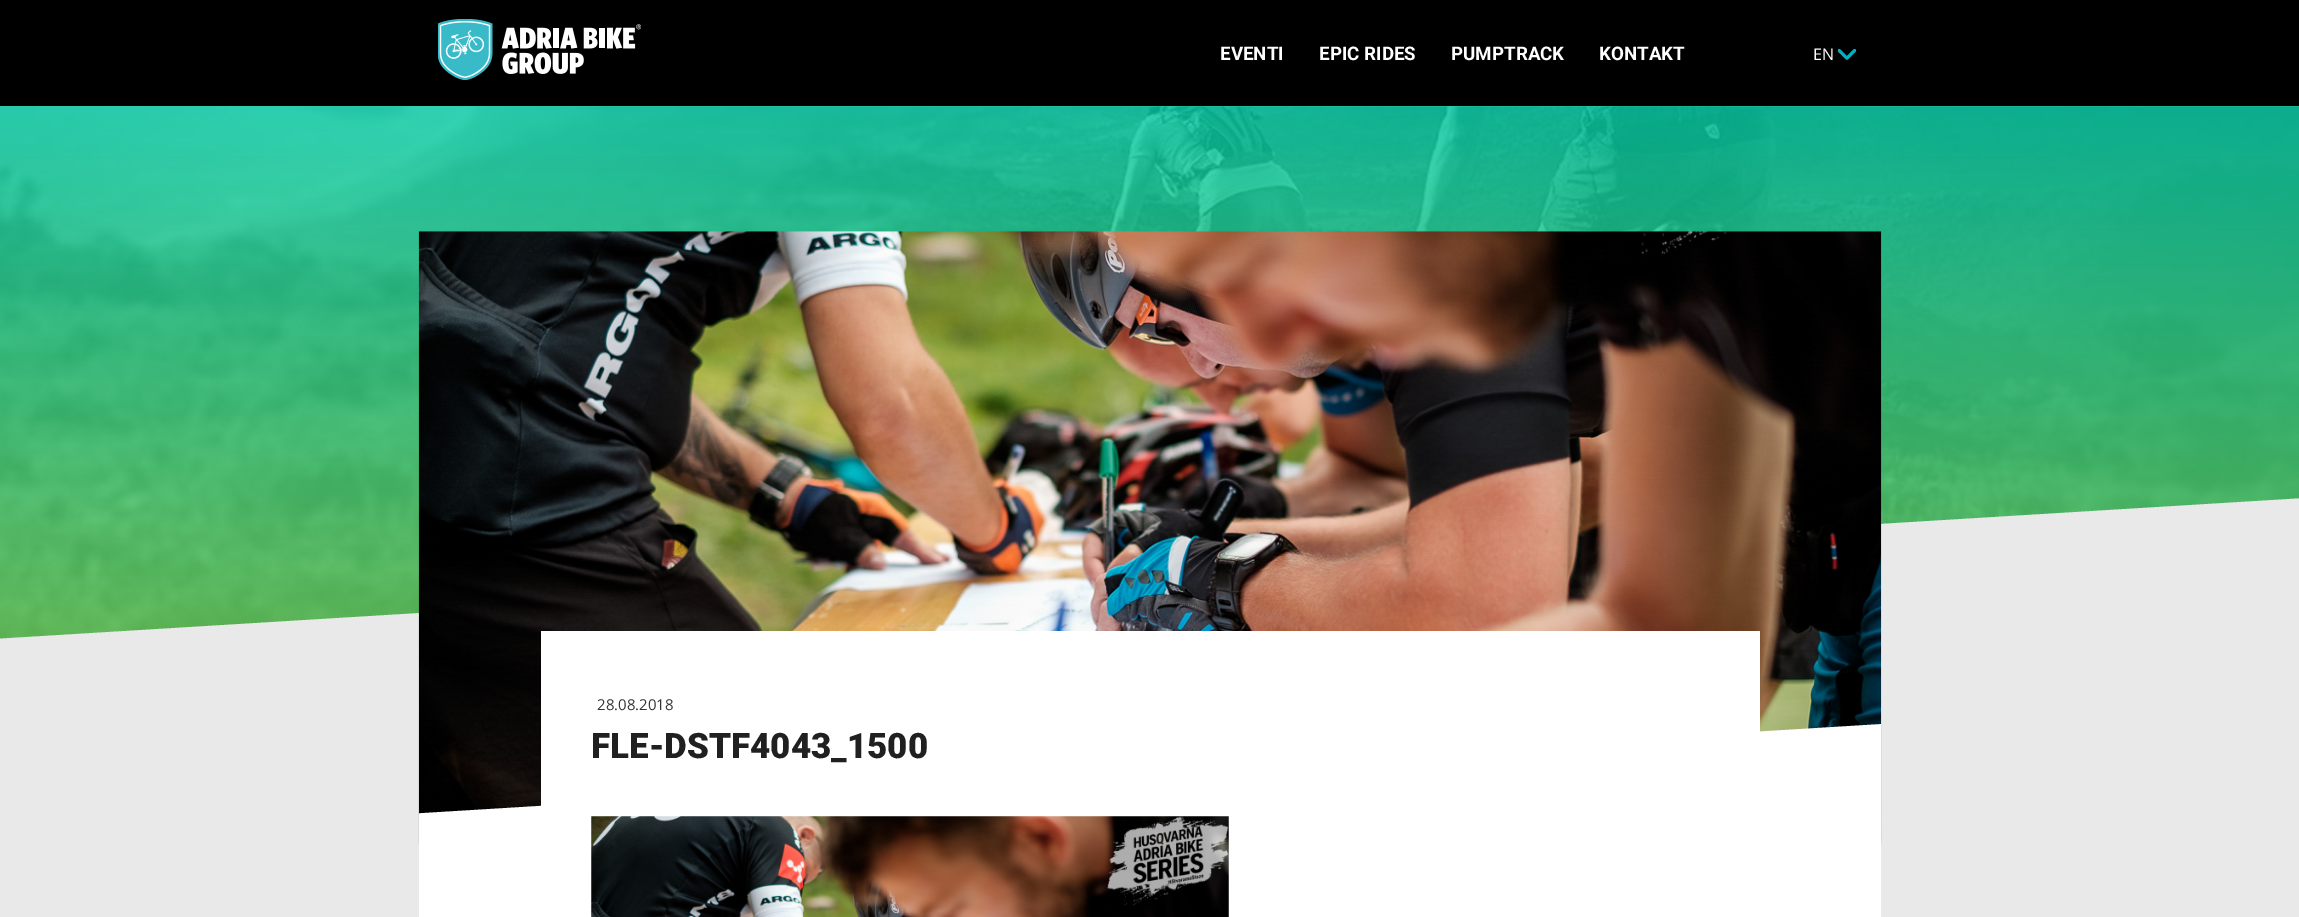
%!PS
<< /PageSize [2299 917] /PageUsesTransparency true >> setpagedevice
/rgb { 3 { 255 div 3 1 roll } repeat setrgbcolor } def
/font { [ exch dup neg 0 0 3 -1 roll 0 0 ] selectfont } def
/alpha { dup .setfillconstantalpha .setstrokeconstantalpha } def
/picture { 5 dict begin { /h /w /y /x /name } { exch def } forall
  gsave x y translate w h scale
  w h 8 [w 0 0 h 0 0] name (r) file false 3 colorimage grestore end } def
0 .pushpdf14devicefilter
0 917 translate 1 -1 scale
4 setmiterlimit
233 233 233 rgb
0 0 2299 917 rectfill
0 0 0 rgb
0 0 2299 106 rectfill
(img/1.rgb) 438 19 203 61 picture
(img/2.rgb) 1838 49 18 11 picture
(img/3.rgb) 0 106 2299 533 picture
0.8 alpha
gsave 0 106 moveto 2299 106 lineto 2299 639 lineto 0 639 lineto closepath clip newpath
<< /ShadingType 2 /ColorSpace /DeviceRGB /Coords [1150 106 1150 681] /Extend [true true] /Function << /FunctionType 2 /Domain [0 1] /C0 [0.008 0.804 0.655] /C1 [0.439 0.835 0.345] /N 1 >> >> shfill grestore
1 alpha
233 233 233 rgb
-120 646 moveto 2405 492 lineto 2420 741 lineto -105 896 lineto closepath fill
(img/4.rgb) 418 231 1464 613 picture
gsave
419 231 1462 613 rectclip
255 255 255 rgb
343 818 moveto 1949 720 lineto 1957 845 lineto 351 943 lineto closepath fill
grestore
255 255 255 rgb
419 844 1462 73 rectfill
541 631 1219 175 rectfill
(img/5.rgb) 591 816 638 101 picture
/Roboto-Bold 18.75 font
[
  [(EVENTI) 1220 60]
  [(EPIC RIDES) 1319 60]
  [(PUMPTRACK) 1451 60]
  [(KONTAKT) 1599 60]
] { aload pop moveto show } forall
/OpenSans-Regular 16 font
1813 60 moveto (EN) show
/OpenSans-Regular 15 font
51 51 51 rgb
597 710 moveto (28.08.2018) show
/Roboto-Black 35 font
32 32 32 rgb
591 758 moveto (FLE-DSTF4043_1500) show
.poppdf14devicefilter showpage
